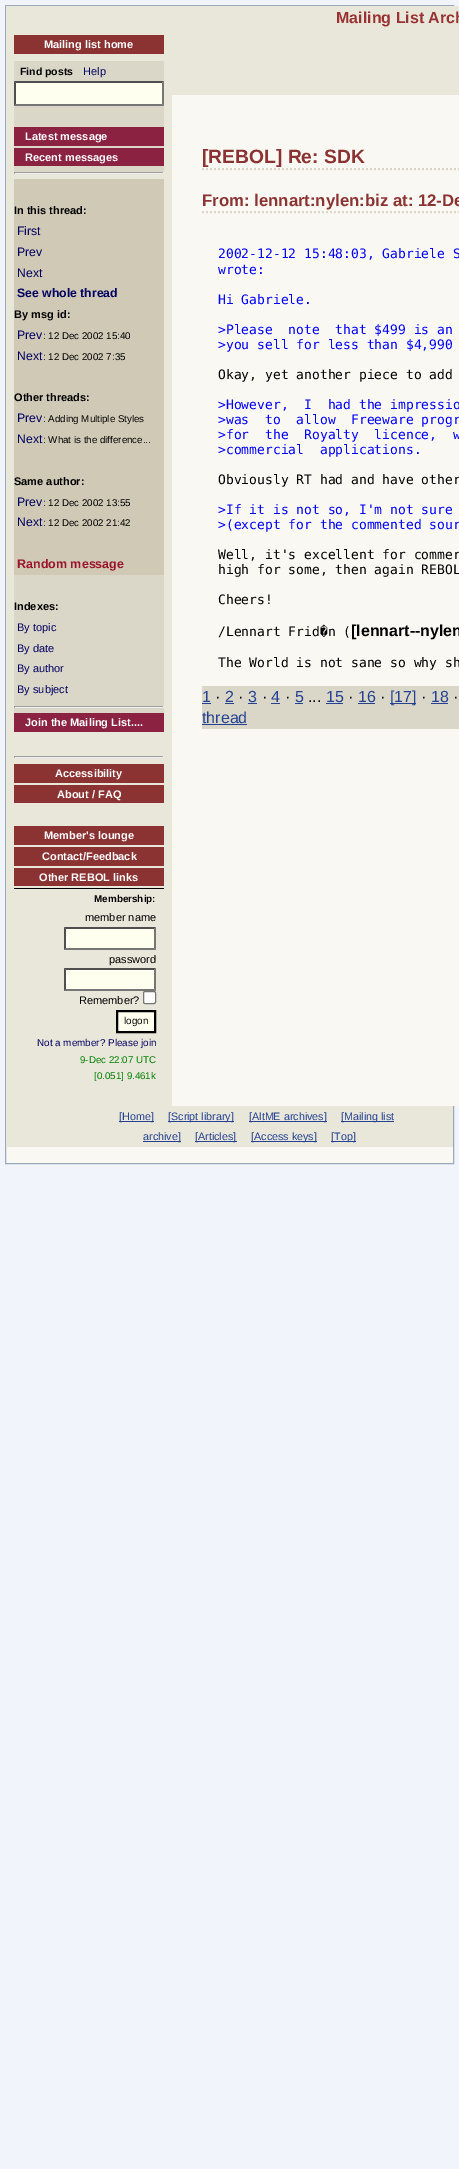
%!PS
<< /PageSize [459 2169] >> setpagedevice
/rgb { 3 { 255 div 3 1 roll } repeat setrgbcolor } def
/font { [ exch dup neg 0 0 3 -1 roll 0 0 ] selectfont } def
/roundrect { 5 dict begin { /r /h /w /y /x } { exch def } forall
  x r add y moveto x w add y 2 copy h add r arct x w add y h add x 1 index r arct
  x y h add x y r arct x y 2 copy exch w add exch r arct closepath end } def
0 2169 translate 1 -1 scale
4 setmiterlimit
241 244 251 rgb
0 0 459 2169 rectfill
249 248 242 rgb
6 1147 447 16 rectfill
153 171 187 rgb
5.5 5.5 448 1158 rectstroke
[
  [172 95 287 1011 249 248 242]
  [6 6 166 1100 233 230 218]
  [14 35 150 19 139 50 50]
  [14 61 150 111 219 215 200]
  [14 81 150 25 255 255 240]
] { aload pop rgb rectfill } forall
79 79 79 rgb
14 81 moveto 164 81 lineto 162 83 lineto 16 83 lineto closepath fill
118 118 118 rgb
164 81 moveto 164 106 lineto 162 104 lineto 162 83 lineto closepath fill
164 106 moveto 14 106 lineto 16 104 lineto 162 104 lineto closepath fill
79 79 79 rgb
14 106 moveto 14 81 lineto 16 83 lineto 16 104 lineto closepath fill
[
  [14 127 150 19 139 34 66]
  [14 148 150 18 139 34 66]
  [14 172 150 1 159 159 159]
  [163 172 1 2 238 238 238]
  [14 173 150 1 238 238 238]
  [14 172 1 2 159 159 159]
  [14 179 150 396 207 201 182]
  [14 575 150 138 219 215 200]
  [14 706 150 1 159 159 159]
  [163 706 1 2 238 238 238]
  [14 707 150 1 238 238 238]
  [14 706 1 2 159 159 159]
  [14 713 150 19 139 34 66]
  [14 888 150 1 0 0 0]
  [14 756 150 1 159 159 159]
  [163 756 1 2 238 238 238]
  [14 757 150 1 238 238 238]
  [14 756 1 2 159 159 159]
  [14 764 150 19 139 50 50]
  [14 785 150 18 139 50 50]
  [14 826 150 19 139 50 50]
  [14 847 150 19 139 50 50]
  [14 868 150 18 139 50 50]
  [64 927 92 23 255 255 240]
] { aload pop rgb rectfill } forall
79 79 79 rgb
64 927 moveto 156 927 lineto 154 929 lineto 66 929 lineto closepath fill
118 118 118 rgb
156 927 moveto 156 950 lineto 154 948 lineto 154 929 lineto closepath fill
156 950 moveto 64 950 lineto 66 948 lineto 154 948 lineto closepath fill
79 79 79 rgb
64 950 moveto 64 927 lineto 66 929 lineto 66 948 lineto closepath fill
255 255 240 rgb
64 968 92 23 rectfill
79 79 79 rgb
64 968 moveto 156 968 lineto 154 970 lineto 66 970 lineto closepath fill
118 118 118 rgb
156 968 moveto 156 991 lineto 154 989 lineto 154 970 lineto closepath fill
156 991 moveto 64 991 lineto 66 989 lineto 154 989 lineto closepath fill
79 79 79 rgb
64 991 moveto 64 968 lineto 66 970 lineto 66 989 lineto closepath fill
255 255 255 rgb
143.5 991.5 12 12 1.5 roundrect gsave fill grestore
118 118 118 rgb
stroke
255 255 240 rgb
117 1011 moveto 155 1011 lineto 155 1032 lineto 117 1032 lineto closepath gsave fill grestore
0 0 0 rgb
2 setlinewidth
stroke
233 230 218 rgb
172 6 287 89 rectfill
216 211 196 rgb
[2 2] 0 setdash
202 169 moveto 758 169 lineto stroke
221 216 201 rgb
202 212 moveto 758 212 lineto stroke
[
  [202 686 257 43 219 215 200]
  [202 703 9 1 37 66 147]
  [225 703 9 1 37 66 147]
  [248 703 9 1 37 66 147]
  [271 703 9 1 37 66 147]
  [295 703 8 1 37 66 147]
  [326 703 17 1 37 66 147]
  [358 703 17 1 37 66 147]
  [390 703 26 1 37 66 147]
  [431 703 17 1 37 66 147]
  [202 724 45 1 37 66 147]
  [6 1106 447 41 233 230 218]
  [119 1121 35 1 37 66 147]
  [168 1121 66 1 37 66 147]
  [249 1121 78 1 37 66 147]
  [341 1121 53 1 37 66 147]
  [143 1141 38 1 37 66 147]
  [195 1141 42 1 37 66 147]
  [251 1141 66 1 37 66 147]
  [331 1141 25 1 37 66 147]
] { aload pop rgb rectfill } forall
/LiberationSans-Bold 11 font
255 255 255 rgb
44 48 moveto (Mailing list home) show
/LiberationSans-Bold 10.5 font
0 0 0 rgb
20 75 moveto (Find posts) show
/LiberationSans-Regular 11 font
0 0 96 rgb
83 75 moveto (Help) show
/LiberationSans-Bold 11 font
255 255 255 rgb
25 140 moveto (Latest message) show
25 161 moveto (Recent messages) show
0 0 0 rgb
14 214 moveto (In this thread:) show
/LiberationSans-Regular 12.25 font
0 0 96 rgb
[
  [(First) 17 235]
  [(Prev) 17 256]
  [(Next) 17 277]
] { aload pop moveto show } forall
/LiberationSans-Bold 12.25 font
17 297 moveto (See whole thread) show
/LiberationSans-Bold 11 font
0 0 0 rgb
14 318 moveto (By msg id:) show
/LiberationSans-Regular 12.25 font
0 0 96 rgb
17 339 moveto (Prev) show
/LiberationSans-Regular 9.75 font
0 0 0 rgb
43 339 moveto (: 12 Dec 2002 15:40) show
/LiberationSans-Regular 12.25 font
0 0 96 rgb
17 360 moveto (Next) show
/LiberationSans-Regular 9.75 font
0 0 0 rgb
43 360 moveto (: 12 Dec 2002 7:35) show
/LiberationSans-Bold 11 font
14 401 moveto (Other threads:) show
/LiberationSans-Regular 12.25 font
0 0 96 rgb
17 422 moveto (Prev) show
/LiberationSans-Regular 9.75 font
0 0 0 rgb
43 422 moveto (: Adding Multiple Styles) show
/LiberationSans-Regular 12.25 font
0 0 96 rgb
17 443 moveto (Next) show
/LiberationSans-Regular 9.75 font
0 0 0 rgb
43 443 moveto (: What is the difference...) show
/LiberationSans-Bold 11 font
14 485 moveto (Same author:) show
/LiberationSans-Regular 12.25 font
0 0 96 rgb
17 506 moveto (Prev) show
/LiberationSans-Regular 9.75 font
0 0 0 rgb
43 506 moveto (: 12 Dec 2002 13:55) show
/LiberationSans-Regular 12.25 font
0 0 96 rgb
17 526 moveto (Next) show
/LiberationSans-Regular 9.75 font
0 0 0 rgb
43 526 moveto (: 12 Dec 2002 21:42) show
/LiberationSans-Bold 12.5 font
156 20 41 rgb
17 568 moveto (Random message) show
/LiberationSans-Bold 11 font
0 0 0 rgb
14 610 moveto (Indexes:) show
/LiberationSans-Regular 11 font
0 0 96 rgb
[
  [(By topic) 17 631]
  [(By date) 17 652]
  [(By author) 17 672]
  [(By subject) 17 693]
] { aload pop moveto show } forall
/LiberationSans-Bold 11 font
255 255 255 rgb
[
  [(Join the Mailing List....) 25 726]
  [(Accessibility) 55 777]
  [(About / FAQ) 57 798]
  [(Member's lounge) 44 839]
  [(Contact/Feedback) 42 860]
  [(Other REBOL links) 39 881]
] { aload pop moveto show } forall
/LiberationSans-Bold 9.9 font
0 0 0 rgb
94 902 moveto (Membership:) show
/LiberationSans-Regular 11 font
[
  [(member name) 85 921]
  [(password) 109 963]
  [(Remember?) 79 1004]
] { aload pop moveto show } forall
/LiberationSans-Regular 9.9 font
124 1024 moveto (logon) show
0 0 96 rgb
37 1046 moveto (Not a member? Please join) show
/LiberationSans-Regular 9.75 font
0 128 0 rgb
80 1063 moveto (9-Dec 22:07 UTC) show
94 1079 moveto ([0.051] 9.461k) show
/LiberationSans-Bold 16 font
153 51 51 rgb
336 23 moveto (Mailing List Arch) show
/LiberationSans-Bold 19.25 font
139 50 50 rgb
202 163 moveto ([REBOL] Re: SDK) show
/LiberationSans-Bold 16.75 font
202 206 moveto (From: lennart:nylen:biz at: 12-De) show
/DejaVuSansMono-Regular 13 font
0 0 255 rgb
[
  [(2002-12-12 15:48:03, Gabriele S) 218 258]
  [(wrote:) 218 274]
  [(Hi Gabriele.) 218 304]
  [(>Please  note  that $499 is an) 218 334]
  [(>you sell for less than $4,990) 218 349]
] { aload pop moveto show } forall
0 0 0 rgb
218 379 moveto (Okay, yet another piece to add) show
0 0 255 rgb
[
  [(>However,  I  had the impressio) 218 409]
  [(>was  to  allow  Freeware progr) 218 424]
  [(>for  the  Royalty  licence,  w) 218 439]
  [(>commercial  applications.) 218 454]
] { aload pop moveto show } forall
0 0 0 rgb
218 484 moveto (Obviously RT had and have other) show
0 0 255 rgb
218 514 moveto (>If it is not so, I'm not sure) show
218 529 moveto (>\(except for the commented sour) show
0 0 0 rgb
[
  [(Well, it's excellent for commer) 218 559]
  [(high for some, then again REBOL) 218 574]
  [(Cheers!) 218 604]
  [(/Lennart Frid�n \() 218 636]
] { aload pop moveto show } forall
/LiberationSans-Bold 16 font
351 636 moveto ([lennart--nylen) show
/DejaVuSansMono-Regular 13 font
218 667 moveto (The World is not sane so why sh) show
/LiberationSans-Regular 16 font
37 66 147 rgb
202 702 moveto (1) show
0 0 0 rgb
215 702 moveto (·) show
37 66 147 rgb
225 702 moveto (2) show
0 0 0 rgb
238 702 moveto (·) show
37 66 147 rgb
248 702 moveto (3) show
0 0 0 rgb
262 702 moveto (·) show
37 66 147 rgb
271 702 moveto (4) show
0 0 0 rgb
285 702 moveto (·) show
37 66 147 rgb
295 702 moveto (5) show
326 702 moveto (15) show
0 0 0 rgb
348 702 moveto (·) show
37 66 147 rgb
358 702 moveto (16) show
0 0 0 rgb
380 702 moveto (·) show
37 66 147 rgb
390 702 moveto ([17]) show
0 0 0 rgb
421 702 moveto (·) show
37 66 147 rgb
431 702 moveto (18) show
0 0 0 rgb
453 702 moveto (·) show
308 702 moveto (...) show
37 66 147 rgb
202 723 moveto (thread) show
/LiberationSans-Regular 10.75 font
[
  [([Home]) 119 1120]
  [([Script library]) 168 1120]
  [([AltME archives]) 249 1120]
  [([Mailing list) 341 1120]
  [(archive]) 143 1140]
  [([Articles]) 195 1140]
  [([Access keys]) 251 1140]
  [([Top]) 331 1140]
] { aload pop moveto show } forall
showpage
